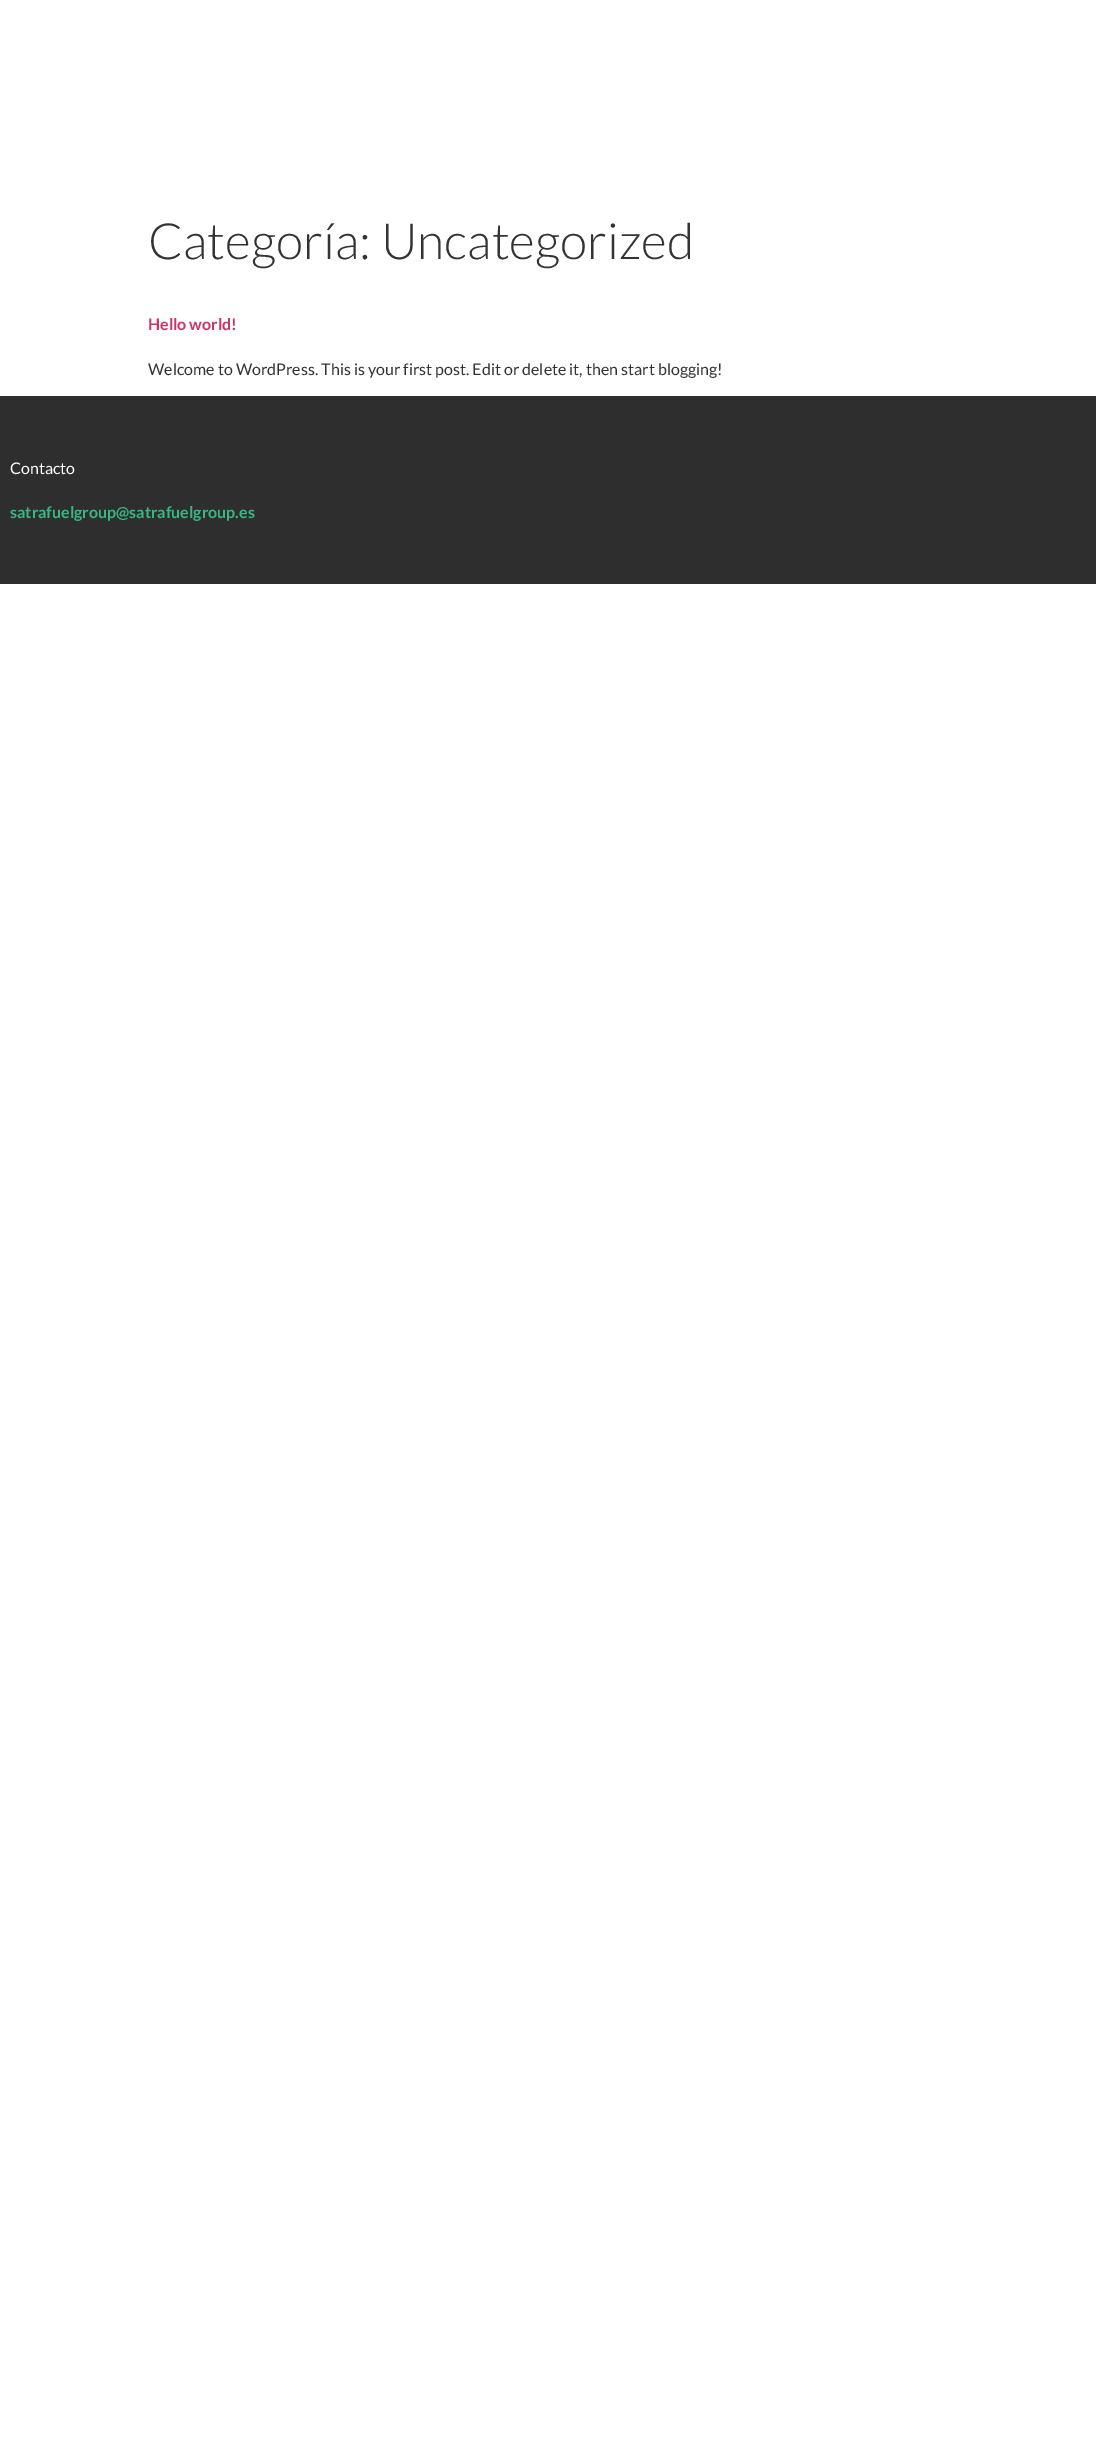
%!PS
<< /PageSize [1096 2437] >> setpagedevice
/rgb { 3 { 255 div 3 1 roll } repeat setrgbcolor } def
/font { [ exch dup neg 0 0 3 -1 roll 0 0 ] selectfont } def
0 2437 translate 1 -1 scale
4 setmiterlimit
255 255 255 rgb
0 0 1096 2437 rectfill
46 46 46 rgb
0 396 1096 188 rectfill
/Lato-Light 50 font
51 51 51 rgb
148 259 moveto (Categoría: Uncategorized) show
/Lato-Bold 16 font
204 51 102 rgb
148 330 moveto (Hello world!) show
/Lato-Regular 16 font
51 51 51 rgb
148 375 moveto (Welcome to WordPress. This is your first post. Edit or delete it, then start blogging!) show
255 255 255 rgb
10 474 moveto (Contacto) show
/Lato-Bold 16 font
56 183 128 rgb
10 518 moveto (satrafuelgroup@satrafuelgroup.es) show
showpage
